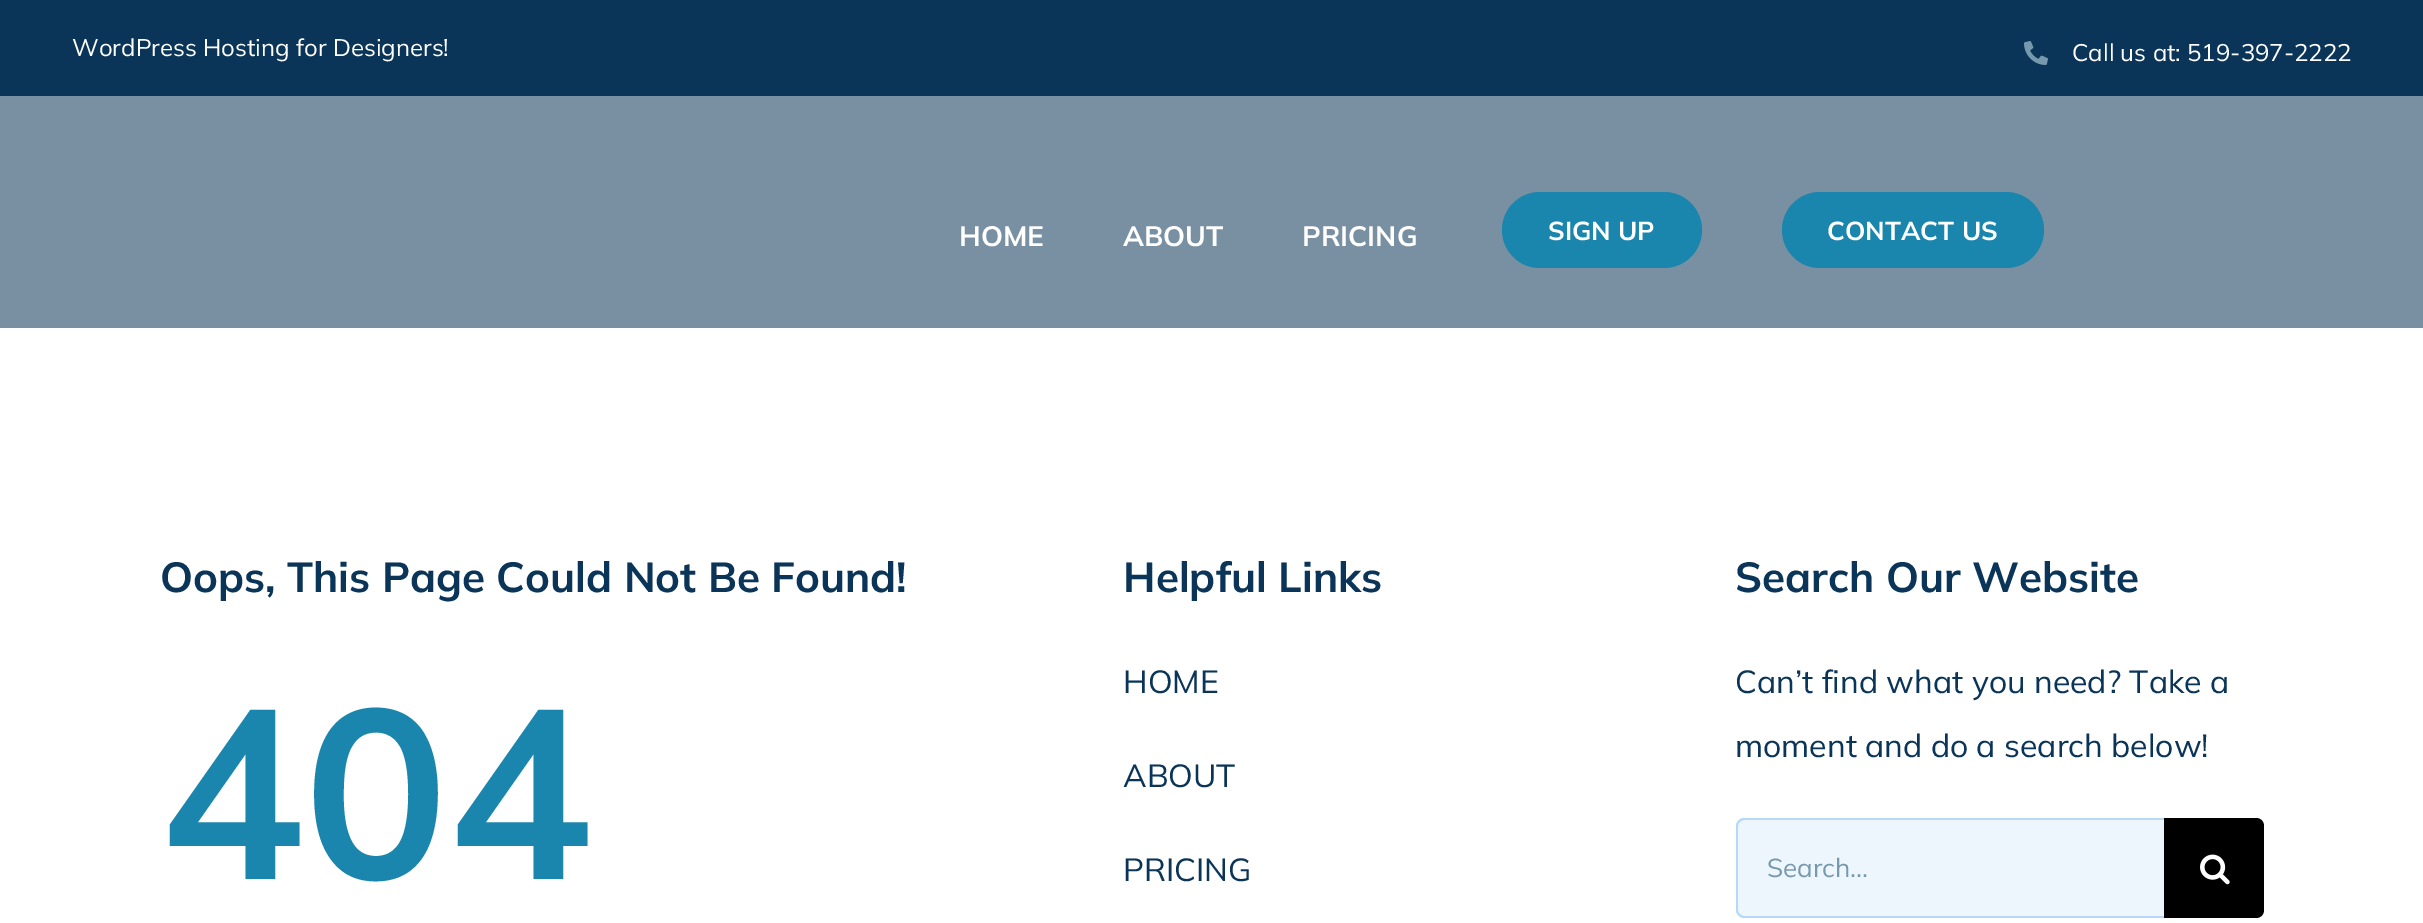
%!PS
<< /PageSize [2423 923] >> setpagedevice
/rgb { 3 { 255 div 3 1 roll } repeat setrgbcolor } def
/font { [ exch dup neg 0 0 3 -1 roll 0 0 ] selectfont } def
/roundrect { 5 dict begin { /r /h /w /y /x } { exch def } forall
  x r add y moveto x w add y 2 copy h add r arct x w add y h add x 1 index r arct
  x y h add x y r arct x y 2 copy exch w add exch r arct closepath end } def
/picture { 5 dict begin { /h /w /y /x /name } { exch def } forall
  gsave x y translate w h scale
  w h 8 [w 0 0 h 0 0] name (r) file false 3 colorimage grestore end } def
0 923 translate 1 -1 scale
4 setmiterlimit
255 255 255 rgb
0 0 2423 923 rectfill
10 53 88 rgb
0 0 2423 96 rectfill
(img/1.rgb) 2024 41 24 24 picture
121 144 163 rgb
0 96 2423 232 rectfill
26 134 173 rgb
1502 192 200 76 38 roundrect fill
1782 192 262 76 38 roundrect fill
237 246 253 rgb
1744 818 moveto 2164 818 lineto 2164 918 lineto 1744 918 lineto 1739.5 918 1736 914.5 1736 910 curveto 1736 826 lineto 1736 821.5 1739.5 818 1744 818 curveto closepath fill
182 217 247 rgb
1744 818 moveto 2164 818 lineto 2164 918 lineto 1744 918 lineto 1740 918 1736 914 1736 910 curveto 1736 826 lineto 1736 822 1740 818 1744 818 curveto closepath 1744 820 moveto 2164 820 lineto 2164 916 lineto 1744 916 lineto 1741 916 1738 913 1738 910 curveto 1738 826 lineto 1738 823 1741 820 1744 820 curveto closepath eofill
0 0 0 rgb
2164 818 moveto 2256 818 lineto 2260.5 818 2264 821.5 2264 826 curveto 2264 910 lineto 2264 914.5 2260.5 918 2256 918 curveto 2164 918 lineto closepath fill
(img/2.rgb) 2200 854 30 31 picture
/Mulish-Regular 24 font
255 255 255 rgb
72 56 moveto (WordPress Hosting for Designers!) show
2072 61 moveto (Call us at: 519-397-2222) show
/Mulish-Bold 28 font
[
  [(HOME) 959 246]
  [(ABOUT) 1123 246]
  [(PRICING) 1302 246]
] { aload pop moveto show } forall
/Mulish-Bold 26 font
1548 240 moveto (SIGN UP) show
1827 240 moveto (CONTACT US) show
/Mulish-Bold 42 font
10 53 88 rgb
160 592 moveto (Oops, This Page Could Not Be Found!) show
/Mulish-Bold 240 font
26 134 173 rgb
160 879 moveto (404) show
/Mulish-Bold 42 font
10 53 88 rgb
1123 592 moveto (Helpful Links) show
/Mulish-Regular 32 font
[
  [(HOME) 1123 693]
  [(ABOUT) 1123 787]
  [(PRICING) 1123 881]
] { aload pop moveto show } forall
/Mulish-Bold 42 font
1735 592 moveto (Search Our Website) show
/Mulish-Regular 32 font
1735 693 moveto (Can’t find what you need? Take a) show
1735 757 moveto (moment and do a search below!) show
/Mulish-Regular 26 font
119 153 173 rgb
1767 877 moveto (Search...) show
showpage
